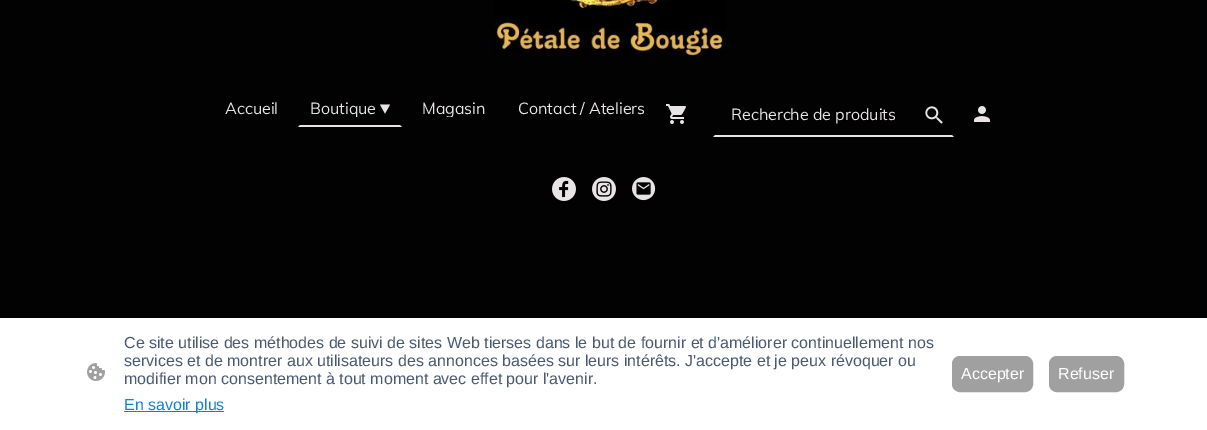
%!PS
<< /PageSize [1207 430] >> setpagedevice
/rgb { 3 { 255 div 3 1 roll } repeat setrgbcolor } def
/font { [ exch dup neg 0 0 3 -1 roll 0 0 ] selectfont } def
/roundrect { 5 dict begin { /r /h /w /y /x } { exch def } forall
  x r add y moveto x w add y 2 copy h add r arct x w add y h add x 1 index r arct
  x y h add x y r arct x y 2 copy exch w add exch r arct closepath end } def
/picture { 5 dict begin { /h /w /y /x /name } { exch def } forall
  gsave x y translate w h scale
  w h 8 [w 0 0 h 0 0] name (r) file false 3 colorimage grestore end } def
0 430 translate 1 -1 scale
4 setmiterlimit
2 2 2 rgb
0 0 1207 430 rectfill
(img/1.rgb) 494 0 233 57 picture
232 227 228 rgb
402 127 moveto 298 127 lineto 300 125 lineto 400 125 lineto closepath fill
390 104.5 moveto 385 113.5 lineto 380 104.5 lineto closepath fill
(img/2.rgb) 666 104 20 20 picture
954 137 moveto 713 137 lineto 715 135 lineto 952 135 lineto closepath fill
(img/3.rgb) 925 106 18 18 picture
(img/4.rgb) 974 106 16 16 picture
(img/5.rgb) 552 177 24 24 picture
(img/6.rgb) 592 177 24 24 picture
(img/7.rgb) 632 177 24 24 picture
255 255 255 rgb
0 318 1207 112 rectfill
(img/8.rgb) 87 363 18 18 picture
17 131 209 rgb
124 411 100 1 rectfill
160 160 160 rgb
952.5 356.5 80 35 7.5 roundrect gsave fill grestore
stroke
1049.5 356.5 74 35 7.5 roundrect gsave fill grestore
stroke
/Muli-Regular 16 font
232 227 228 rgb
225 114 moveto (Accueil) show
gsave
310 101 66 16 rectclip
310 114 moveto (Boutique) show
grestore
gsave
422 101 64 16 rectclip
422 114 moveto (Magasin) show
grestore
518 114 moveto (Contact / Ateliers) show
731 120 moveto (Recherche de produits) show
/LiberationSans-Regular 16 font
74 90 115 rgb
[
  [(Ce site utilise des méthodes de suivi de sites Web tierses dans le but de fournir et d'améliorer continuellement nos) 124 348]
  [(services et de montrer aux utilisateurs des annonces basées sur leurs intérêts. J'accepte et je peux révoquer ou) 124 366]
  [(modifier mon consentement à tout moment avec effet pour l'avenir.) 124 384]
] { aload pop moveto show } forall
17 131 209 rgb
124 410 moveto (En savoir plus) show
255 255 255 rgb
961 379 moveto (Accepter) show
1058 379 moveto (Refuser) show
showpage
